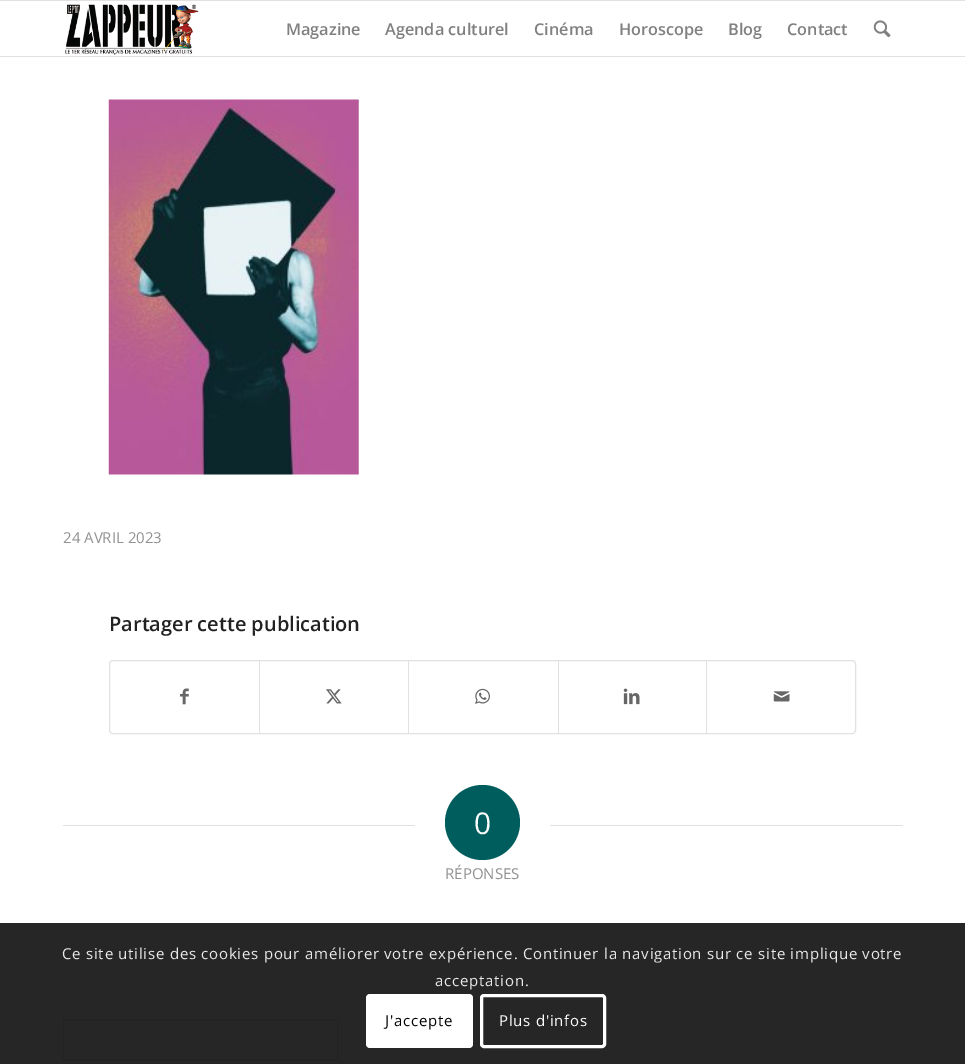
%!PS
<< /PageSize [965 1064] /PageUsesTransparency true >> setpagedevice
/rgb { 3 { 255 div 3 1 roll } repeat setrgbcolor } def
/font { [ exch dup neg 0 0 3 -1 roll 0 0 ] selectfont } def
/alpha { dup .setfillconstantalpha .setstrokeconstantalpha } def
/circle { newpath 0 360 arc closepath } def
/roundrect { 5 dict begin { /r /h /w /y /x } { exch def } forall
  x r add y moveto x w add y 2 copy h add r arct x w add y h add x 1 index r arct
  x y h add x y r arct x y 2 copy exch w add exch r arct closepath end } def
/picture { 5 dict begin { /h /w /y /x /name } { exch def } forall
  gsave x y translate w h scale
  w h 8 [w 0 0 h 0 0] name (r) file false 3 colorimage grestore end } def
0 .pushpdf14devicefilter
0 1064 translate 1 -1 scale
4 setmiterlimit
255 255 255 rgb
0 0 965 1064 rectfill
225 225 225 rgb
0 0 965 1 rectfill
0 56 965 1 rectfill
(img/1.rgb) 65 4 134 51 picture
(img/2.rgb) 873 20 18 18 picture
(img/3.rgb) 108 99 251 376 picture
109.5 660.5 746 73 3.5 roundrect stroke
(img/4.rgb) 180 688 9 17 picture
259 661 1 72 rectfill
(img/5.rgb) 326 689 16 15 picture
408 661 1 72 rectfill
(img/6.rgb) 475 688 15 16 picture
558 661 1 72 rectfill
(img/7.rgb) 623 688 17 17 picture
706 661 1 72 rectfill
(img/8.rgb) 773 691 17 11 picture
63 825 352 1 rectfill
0 93 93 rgb
482.5 822.5 37.5 circle fill
225 225 225 rgb
550 825 353 1 rectfill
252 252 252 rgb
63.5 1019.5 moveto 337.5 1019.5 lineto 337.5 1059.5 lineto 63.5 1059.5 lineto closepath gsave fill grestore
225 225 225 rgb
stroke
0.85 alpha
0 0 0 rgb
0 923 965 141 rectfill
1 alpha
255 255 255 rgb
366 994 107 54 4 roundrect fill
3 setlinewidth
481.5 995.5 123 51 2.5 roundrect stroke
/OpenSans-SemiBold 16.25 font
128 128 128 rgb
[
  [(Magazine) 286 35]
  [(Agenda culturel) 385 35]
  [(Cinéma) 534 35]
  [(Horoscope) 619 35]
  [(Blog) 728 35]
  [(Contact) 787 35]
] { aload pop moveto show } forall
/OpenSans-Regular 15 font
145 145 145 rgb
63 543 moveto (24 AVRIL 2023) show
/OpenSans-SemiBold 20 font
34 34 34 rgb
109 631 moveto (Partager cette publication) show
/OpenSans-Regular 30 font
255 255 255 rgb
474 834 moveto (0) show
/OpenSans-Regular 15 font
145 145 145 rgb
445 879 moveto (RÉPONSES) show
233 233 233 rgb
62 959 moveto 0.75 0 (Ce site utilise des cookies pour améliorer votre expérience. Continuer la navigation sur ce site implique votre) ashow
435 986 moveto 0.75 0 (acceptation.) ashow
0 0 0 rgb
385 1026 moveto 0.75 0 (J'accepte) ashow
255 255 255 rgb
499 1026 moveto 0.75 0 (Plus d'infos) ashow
.poppdf14devicefilter showpage
